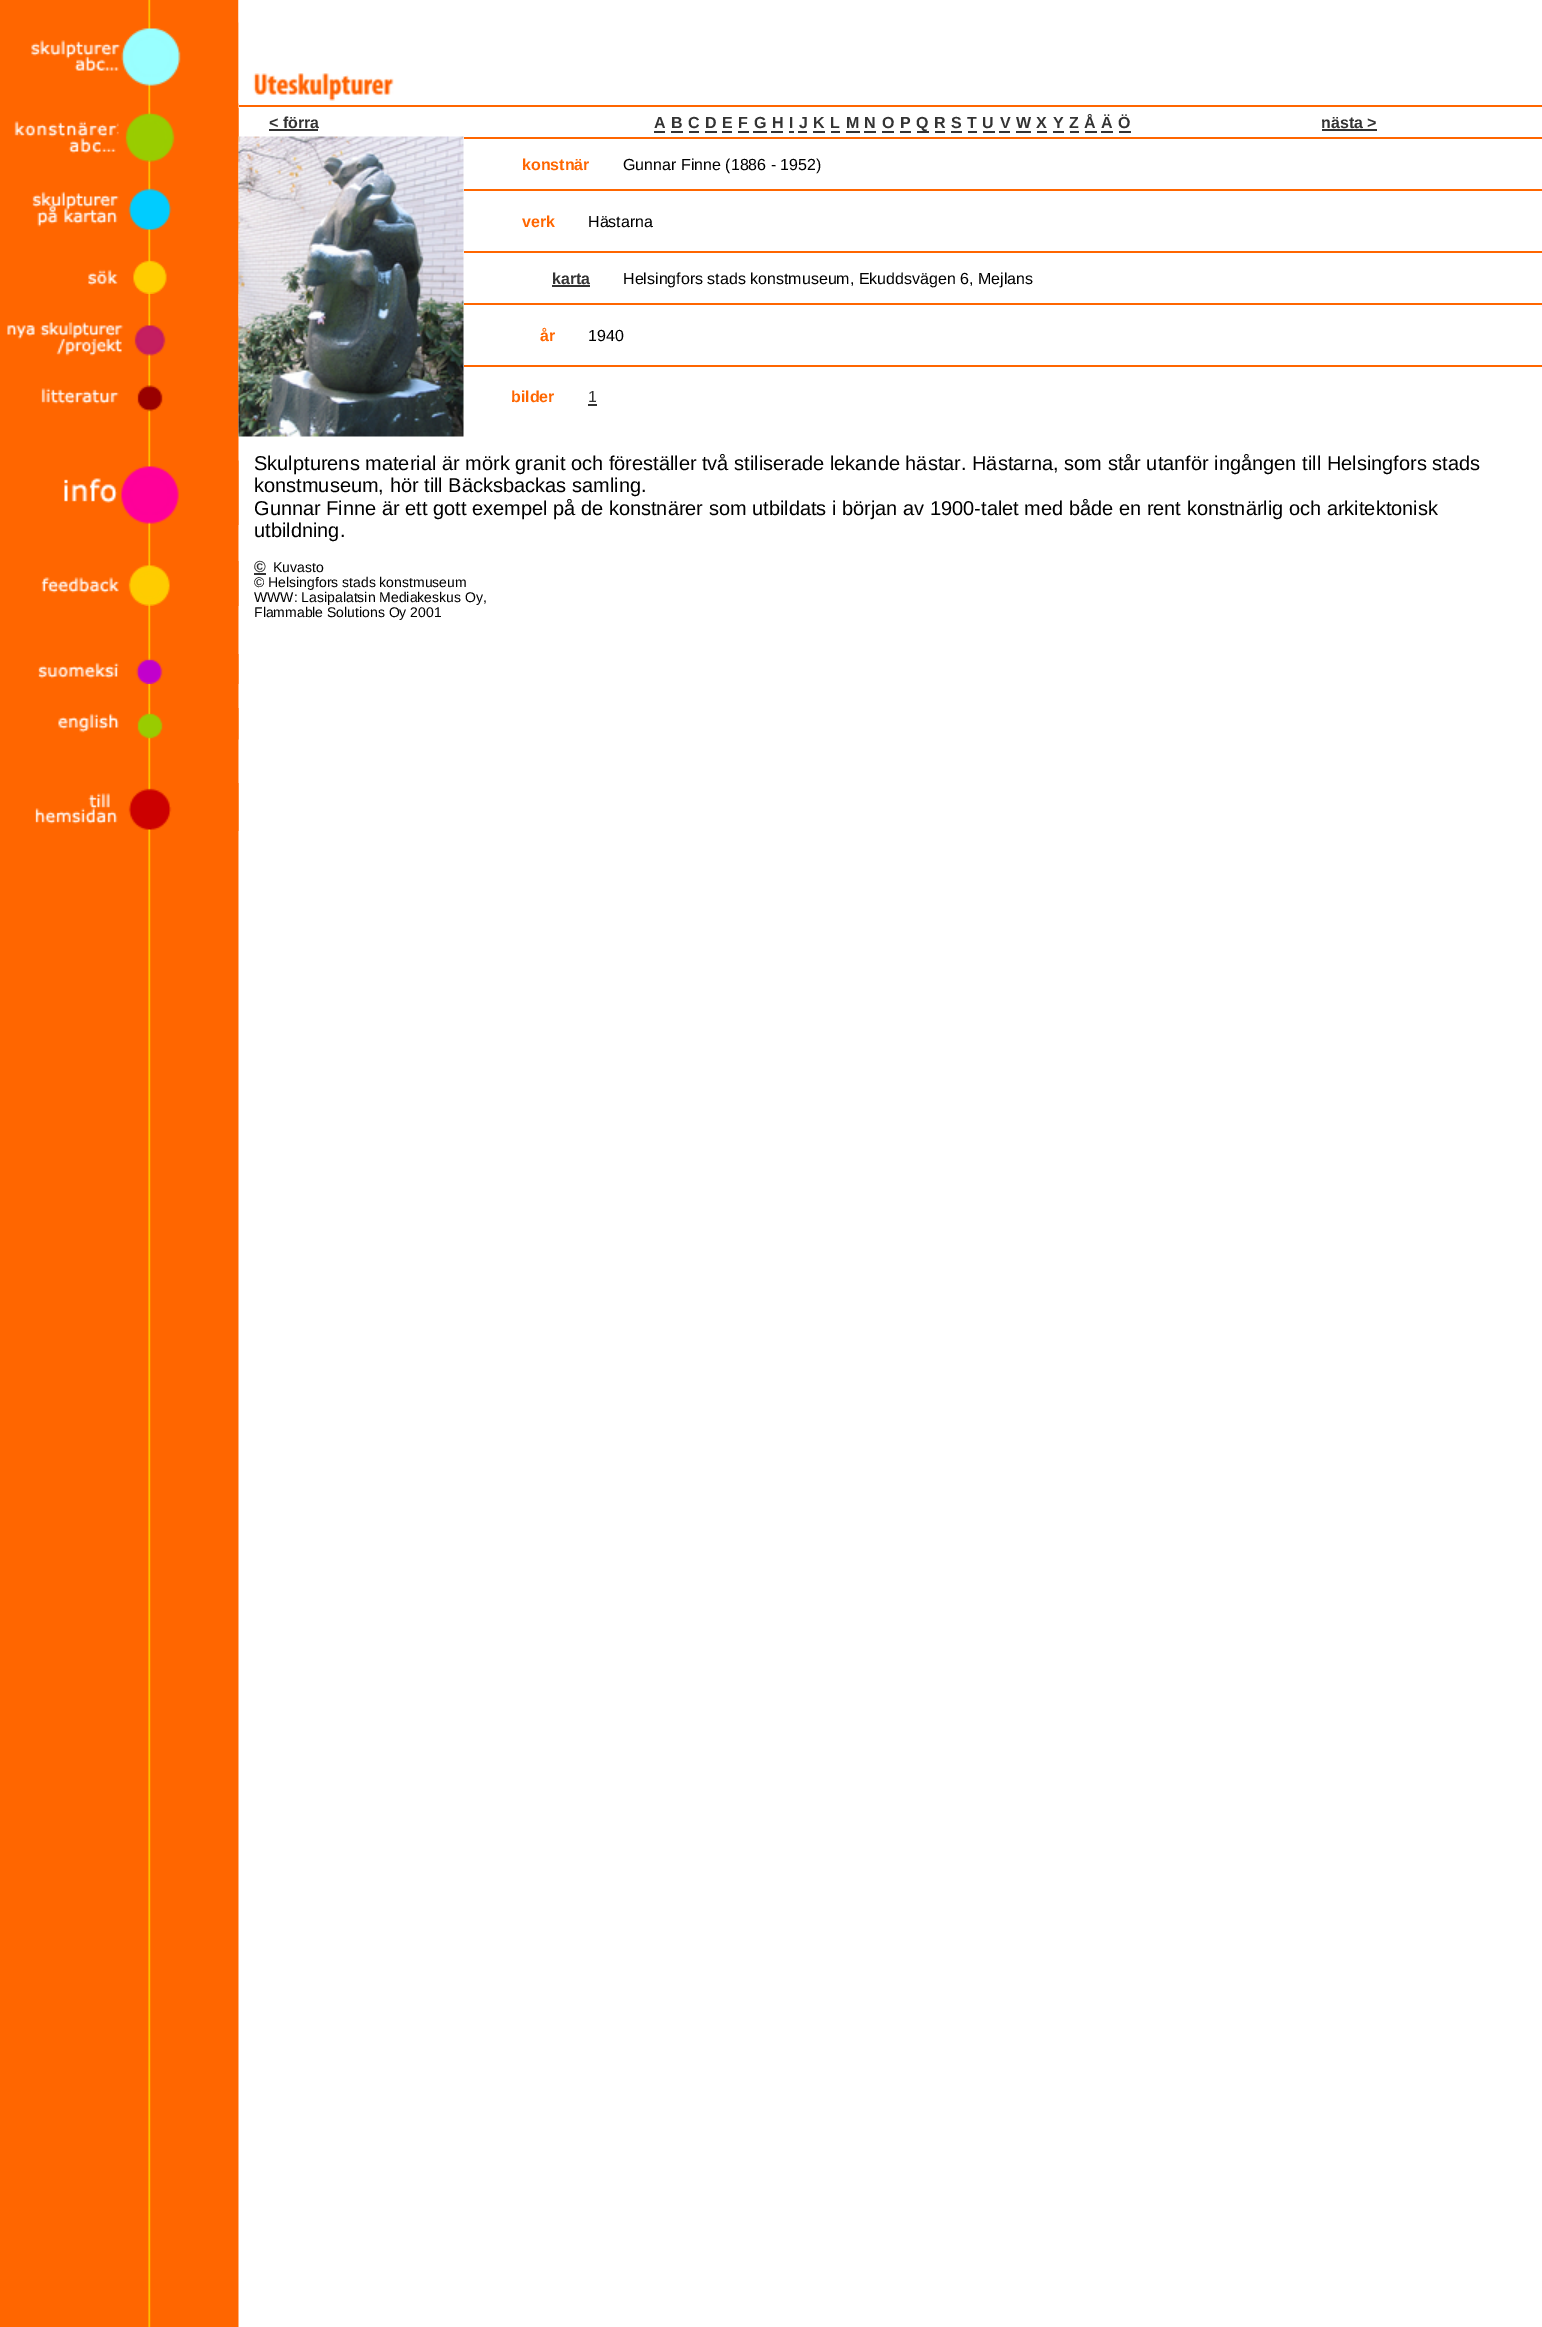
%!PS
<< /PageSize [1542 2327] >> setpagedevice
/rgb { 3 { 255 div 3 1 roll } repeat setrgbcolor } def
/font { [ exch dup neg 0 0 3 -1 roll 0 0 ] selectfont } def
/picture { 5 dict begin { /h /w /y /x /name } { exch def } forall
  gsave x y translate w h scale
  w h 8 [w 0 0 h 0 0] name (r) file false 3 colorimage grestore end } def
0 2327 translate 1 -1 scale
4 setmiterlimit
255 255 255 rgb
0 0 1542 2327 rectfill
(img/1.rgb) 0 0 239 2327 picture
(img/2.rgb) 31 22 208 68 picture
(img/3.rgb) 14 108 225 54 picture
(img/4.rgb) 32 184 207 46 picture
(img/5.rgb) 88 250 151 44 picture
(img/6.rgb) 7 316 232 41 picture
(img/7.rgb) 41 381 198 32 picture
(img/8.rgb) 64 460 175 65 picture
(img/9.rgb) 41 561 198 45 picture
(img/10.rgb) 38 654 201 30 picture
(img/11.rgb) 58 708 181 32 picture
(img/12.rgb) 35 783 204 48 picture
(img/13.rgb) 238 0 156 104 picture
[
  [239 105 1303 2 255 102 0]
  [269 129 49 2 51 51 51]
  [654 131 11 2 51 51 51]
  [671 131 12 2 51 51 51]
  [689 131 10 2 51 51 51]
  [705 131 12 2 51 51 51]
  [722 131 10 2 51 51 51]
  [738 131 11 2 51 51 51]
  [753 131 14 2 51 51 51]
  [771 131 12 2 51 51 51]
  [789 131 5 2 51 51 51]
  [798 131 9 2 51 51 51]
  [813 131 12 2 51 51 51]
  [831 131 9 2 51 51 51]
  [846 131 14 2 51 51 51]
  [864 131 12 2 51 51 51]
  [882 131 12 2 51 51 51]
  [900 131 11 2 51 51 51]
  [917 131 12 2 51 51 51]
  [935 131 10 2 51 51 51]
  [951 131 11 2 51 51 51]
  [968 131 9 2 51 51 51]
  [983 131 12 2 51 51 51]
  [999 131 11 2 51 51 51]
  [1016 131 15 2 51 51 51]
  [1037 131 10 2 51 51 51]
  [1053 131 11 2 51 51 51]
  [1070 131 9 2 51 51 51]
  [1085 131 12 2 51 51 51]
  [1101 131 12 2 51 51 51]
  [1119 131 12 2 51 51 51]
  [1322 129 55 2 51 51 51]
] { aload pop rgb rectfill } forall
(img/14.rgb) 238 136 226 301 picture
[
  [464 137 1078 2 255 102 0]
  [464 189 1078 2 255 102 0]
  [464 251 1078 2 255 102 0]
  [552 285 38 2 51 51 51]
  [464 303 1078 2 255 102 0]
  [464 365 1078 2 255 102 0]
  [588 404 9 2 51 51 51]
  [254 573 12 2 51 51 51]
] { aload pop rgb rectfill } forall
/LiberationSans-Bold 16 font
[
  [(< förra) 269 128]
  [(A) 654 128]
  [(B) 671 128]
  [(C) 688 128]
  [(D) 705 128]
  [(E) 722 128]
  [(F) 738 128]
  [(G) 754 128]
  [(H) 772 128]
  [(I) 789 128]
  [(J) 799 128]
  [(K) 813 128]
  [(L) 830 128]
  [(M) 846 128]
  [(N) 864 128]
  [(O) 882 128]
  [(P) 900 128]
  [(Q) 916 128]
  [(R) 934 128]
  [(S) 951 128]
  [(T) 967 128]
  [(U) 982 128]
  [(V) 1000 128]
  [(W) 1016 128]
  [(X) 1036 128]
  [(Y) 1053 128]
  [(Z) 1069 128]
  [(Å) 1084 128]
  [(Ä) 1101 128]
  [(Ö) 1118 128]
  [(nästa >) 1321 128]
] { aload pop moveto show } forall
255 102 0 rgb
522 170 moveto (konstnär) show
/LiberationSans-Regular 16 font
0 0 0 rgb
623 170 moveto (Gunnar Finne \(1886 - 1952\)) show
/LiberationSans-Bold 16 font
255 102 0 rgb
522 227 moveto (verk) show
/LiberationSans-Regular 16 font
0 0 0 rgb
588 227 moveto (Hästarna) show
/LiberationSans-Bold 16 font
51 51 51 rgb
552 284 moveto (karta) show
/LiberationSans-Regular 16 font
0 0 0 rgb
623 284 moveto (Helsingfors stads konstmuseum, Ekuddsvägen 6, Mejlans) show
/LiberationSans-Bold 16 font
255 102 0 rgb
540 341 moveto (år) show
/LiberationSans-Regular 16 font
0 0 0 rgb
588 341 moveto (1940) show
/LiberationSans-Bold 16 font
255 102 0 rgb
511 402 moveto (bilder) show
/LiberationSans-Regular 16 font
51 51 51 rgb
588 402 moveto (1) show
/LiberationSans-Regular 20 font
0 0 0 rgb
[
  [(Skulpturens material är mörk granit och föreställer två stiliserade lekande hästar. Hästarna, som står utanför ingången till Helsingfors stads) 254 470]
  [(konstmuseum, hör till Bäcksbackas samling.) 254 492]
  [(Gunnar Finne är ett gott exempel på de konstnärer som utbildats i början av 1900-talet med både en rent konstnärlig och arkitektonisk) 254 515]
  [(utbildning.) 254 537]
] { aload pop moveto show } forall
/LiberationSans-Bold 16 font
51 51 51 rgb
254 572 moveto (©) show
/LiberationSans-Regular 14 font
0 0 0 rgb
[
  [(Kuvasto) 273 572]
  [(© Helsingfors stads konstmuseum) 254 587]
  [(WWW: Lasipalatsin Mediakeskus Oy,) 254 602]
  [(Flammable Solutions Oy 2001) 254 617]
] { aload pop moveto show } forall
showpage
